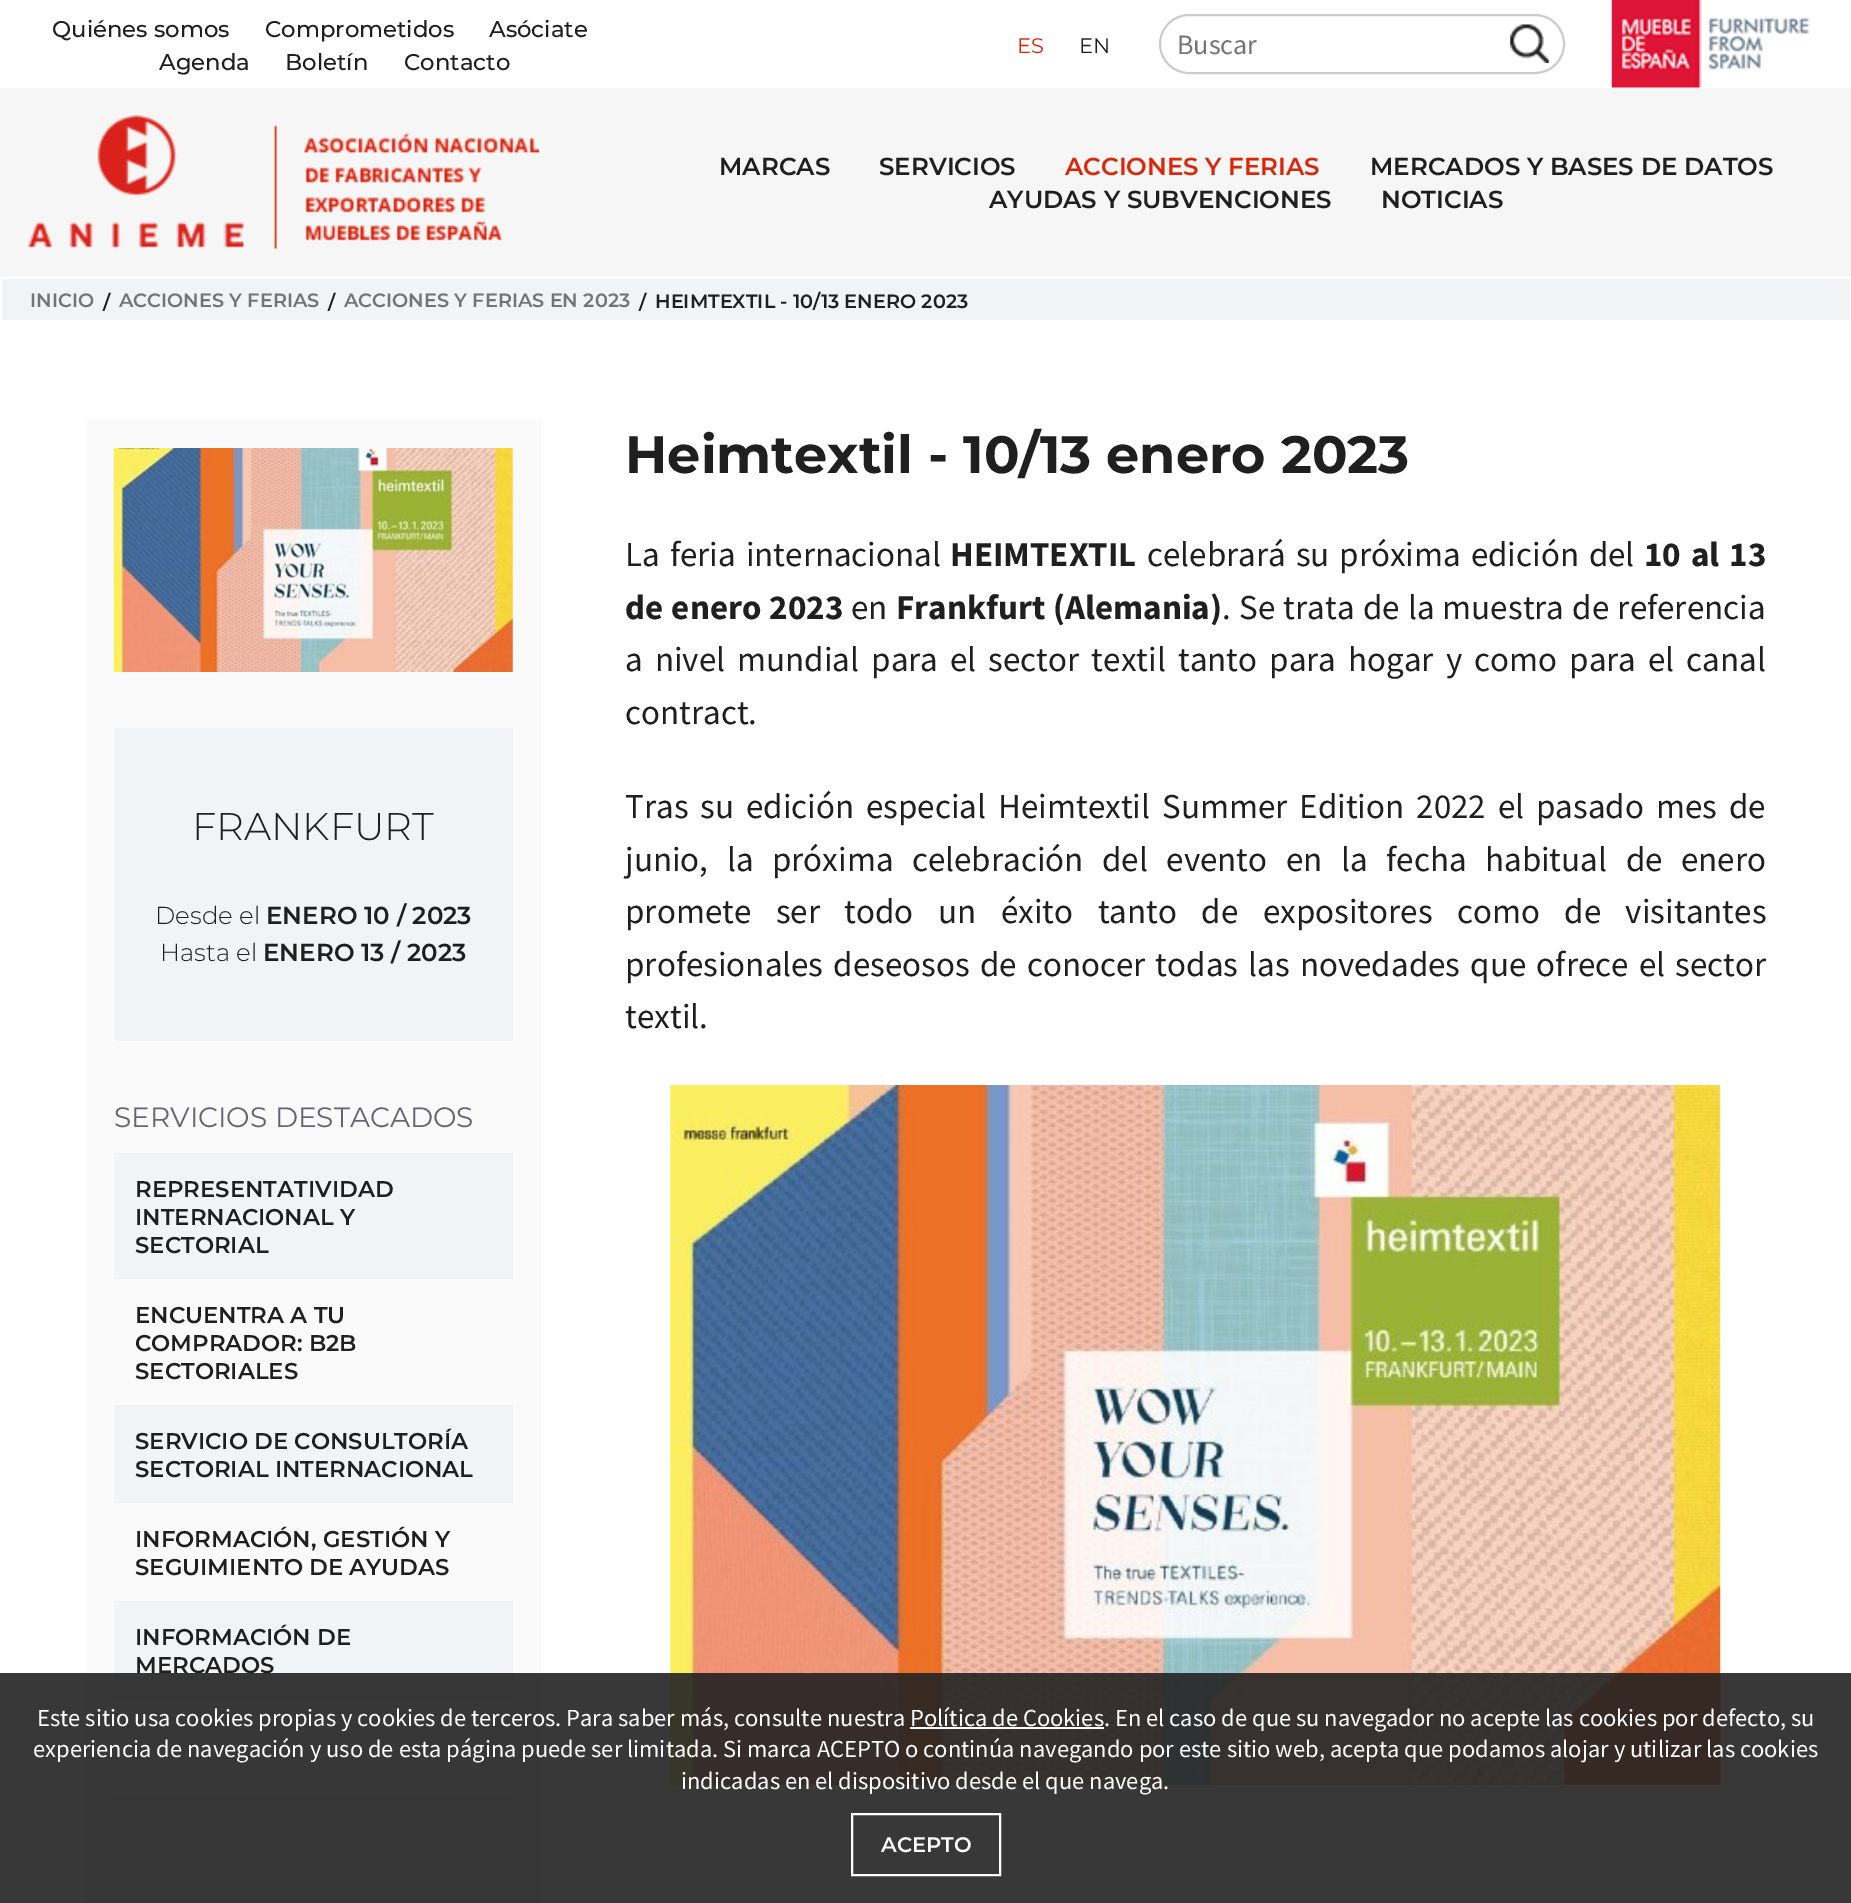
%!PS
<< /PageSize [1851 1903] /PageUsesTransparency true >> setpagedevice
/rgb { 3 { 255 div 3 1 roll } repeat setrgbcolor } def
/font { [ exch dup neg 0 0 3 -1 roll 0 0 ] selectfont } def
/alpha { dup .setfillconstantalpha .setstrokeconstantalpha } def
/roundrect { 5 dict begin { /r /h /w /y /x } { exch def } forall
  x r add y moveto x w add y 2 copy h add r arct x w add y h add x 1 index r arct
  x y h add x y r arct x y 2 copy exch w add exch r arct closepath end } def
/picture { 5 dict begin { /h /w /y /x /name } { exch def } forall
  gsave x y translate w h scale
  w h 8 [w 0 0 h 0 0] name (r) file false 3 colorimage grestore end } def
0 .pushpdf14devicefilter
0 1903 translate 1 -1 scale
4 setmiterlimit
255 255 255 rgb
0 0 1851 1903 rectfill
204 204 204 rgb
2 setlinewidth
1160 15 404 58 29 roundrect stroke
(img/1.rgb) 1510 24 39 39 picture
(img/2.rgb) 1611 0 199 88 picture
246 246 246 rgb
0 88 1851 189 rectfill
(img/3.rgb) 28 115 511 134 picture
241 243 244 rgb
2 279 1848 41 rectfill
(img/4.rgb) 670 1085 1051 700 picture
250 250 250 rgb
86 420 455 1483 rectfill
(img/5.rgb) 113 448 400 224 picture
[
  [114 728 399 313 241 243 244]
  [114 1153 399 126 241 243 244]
  [114 1405 399 98 241 243 244]
  [114 1601 399 98 241 243 244]
  [114 1797 399 98 241 243 244]
] { aload pop rgb rectfill } forall
/Montserrat-Medium 22.75 font
31 31 31 rgb
[
  [(Quiénes somos) 52 37]
  [(Comprometidos) 265 37]
  [(Asóciate) 489 37]
  [(Agenda) 159 70]
  [(Boletín) 285 70]
  [(Contacto) 404 70]
] { aload pop moveto show } forall
/Montserrat-Regular 21 font
220 38 10 rgb
1017 53 moveto (ES) show
31 31 31 rgb
1079 53 moveto (EN) show
/SourceSansPro-Regular 28 font
115 116 116 rgb
1177 54 moveto (Buscar) show
/Montserrat-SemiBold 24.5 font
31 31 31 rgb
719 175 moveto (MARCAS) show
879 175 moveto (SERVICIOS) show
220 38 10 rgb
1065 175 moveto (ACCIONES Y FERIAS) show
31 31 31 rgb
[
  [(MERCADOS Y BASES DE DATOS) 1370 175]
  [(AYUDAS Y SUBVENCIONES) 989 208]
  [(NOTICIAS) 1381 208]
] { aload pop moveto show } forall
/Montserrat-SemiBold 19.25 font
115 116 116 rgb
30 307 moveto (INICIO) show
31 31 31 rgb
103 309 moveto (/) show
115 116 116 rgb
119 307 moveto (ACCIONES Y FERIAS) show
31 31 31 rgb
328 309 moveto (/) show
115 116 116 rgb
344 307 moveto (ACCIONES Y FERIAS EN 2023) show
31 31 31 rgb
639 309 moveto (/) show
655 308 moveto (HEIMTEXTIL - 10/13 ENERO 2023) show
/Montserrat-Bold 52.5 font
625 473 moveto (Heimtextil - 10/13 enero 2023) show
/SourceSansPro-Regular 35 font
625 566 moveto 3 0 32 (La feria internacional) widthshow
/SourceSansPro-Bold 35 font
950 566 moveto (HEIMTEXTIL) show
/SourceSansPro-Regular 35 font
1147 566 moveto 3 0 32 (celebrará su próxima edición del) widthshow
/SourceSansPro-Bold 35 font
1644 566 moveto 3 0 32 (10 al 13) widthshow
625 619 moveto 1.25 0 32 (de enero 2023) widthshow
/SourceSansPro-Regular 35 font
851 619 moveto (en) show
/SourceSansPro-Bold 35 font
896 619 moveto 1 0 32 (Frankfurt \(Alemania\)) widthshow
/SourceSansPro-Regular 35 font
1222 619 moveto 1.25 0 32 (. Se trata de la muestra de referencia) widthshow
625 671 moveto 5.1 0 32 (a nivel mundial para el sector textil tanto para hogar y como para el canal) widthshow
625 724 moveto (contract.) show
625 818 moveto 5 0 32 (Tras su edición especial Heimtextil Summer Edition 2022 el pasado mes de) widthshow
625 871 moveto 11.6 0 32 (junio, la próxima celebración del evento en la fecha habitual de enero) widthshow
625 923 moveto 17.5 0 32 (promete ser todo un éxito tanto de expositores como de visitantes) widthshow
625 976 moveto 3.25 0 32 (profesionales deseosos de conocer todas las novedades que ofrece el sector) widthshow
625 1028 moveto (textil.) show
/Montserrat-Light 38.5 font
192 840 moveto (FRANKFURT) show
/Montserrat-Light 24.5 font
155 924 moveto (Desde el) show
/Montserrat-SemiBold 24.5 font
266 924 moveto (ENERO 10 / 2023) show
/Montserrat-Light 24.5 font
160 961 moveto (Hasta el) show
/Montserrat-SemiBold 24.5 font
263 961 moveto (ENERO 13 / 2023) show
/Montserrat-Regular 28 font
100 100 115 rgb
114 1127 moveto (SERVICIOS DESTACADOS) show
/Montserrat-SemiBold 22.75 font
31 31 31 rgb
[
  [(REPRESENTATIVIDAD) 135 1197]
  [(INTERNACIONAL Y) 135 1225]
  [(SECTORIAL) 135 1253]
  [(ENCUENTRA A TU) 135 1323]
  [(COMPRADOR: B2B) 135 1351]
  [(SECTORIALES) 135 1379]
  [(SERVICIO DE CONSULTORÍA) 135 1449]
  [(SECTORIAL INTERNACIONAL) 135 1477]
  [(INFORMACIÓN, GESTIÓN Y) 135 1547]
  [(SEGUIMIENTO DE AYUDAS) 135 1575]
  [(INFORMACIÓN DE) 135 1645]
  [(MERCADOS) 135 1673]
] { aload pop moveto show } forall
0.9 alpha
34 34 34 rgb
0 1673 1851 230 rectfill
/SourceSansPro-Regular 24.5 font
1 alpha
255 255 255 rgb
37 1726 moveto (Este sitio usa cookies propias y cookies de terceros. Para saber más, consulte nuestra Política de Cookies. En el caso de que su navegador no acepte las cookies por defecto, su) show
910 1727 194 2 rectfill
33 1757 moveto (experiencia de navegación y uso de esta página puede ser limitada. Si marca ACEPTO o continúa navegando por este sitio web, acepta que podamos alojar y utilizar las cookies) show
681 1789 moveto (indicadas en el dispositivo desde el que navega.) show
852 1814 148 61 rectstroke
/Montserrat-SemiBold 21 font
881 1852 moveto (ACEPTO) show
.poppdf14devicefilter showpage
